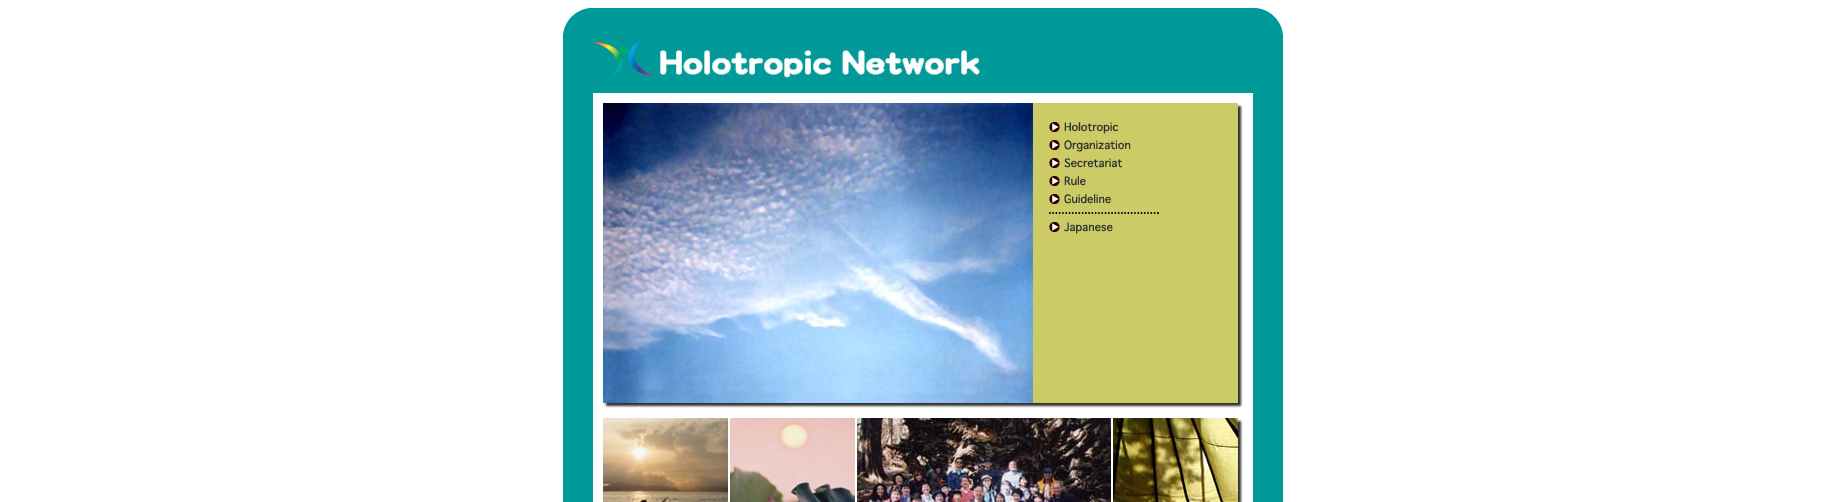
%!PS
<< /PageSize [1846 502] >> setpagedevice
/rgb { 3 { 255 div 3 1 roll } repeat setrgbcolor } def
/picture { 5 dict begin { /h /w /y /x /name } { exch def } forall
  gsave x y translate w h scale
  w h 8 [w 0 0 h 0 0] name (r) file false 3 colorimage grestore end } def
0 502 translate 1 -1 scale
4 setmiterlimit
255 255 255 rgb
0 0 1846 502 rectfill
0 153 153 rgb
563 8 720 494 rectfill
(img/1.rgb) 563 8 26 26 picture
(img/2.rgb) 1257 8 26 26 picture
(img/3.rgb) 593 38 387 40 picture
255 255 255 rgb
593 93 660 409 rectfill
(img/4.rgb) 603 103 430 300 picture
204 204 102 rgb
1033 103 205 300 rectfill
(img/5.rgb) 1049 122 69 12 picture
(img/6.rgb) 1049 140 82 12 picture
(img/7.rgb) 1049 158 73 10 picture
(img/8.rgb) 1049 176 37 10 picture
(img/9.rgb) 1049 194 62 10 picture
(img/10.rgb) 1049 212 110 2 picture
(img/11.rgb) 1049 222 64 12 picture
(img/12.rgb) 1238 104 5 299 picture
(img/13.rgb) 604 403 639 5 picture
(img/14.rgb) 603 418 125 84 picture
(img/15.rgb) 730 418 125 84 picture
(img/16.rgb) 857 418 254 84 picture
(img/17.rgb) 1113 418 125 84 picture
(img/18.rgb) 1238 419 5 83 picture
showpage
